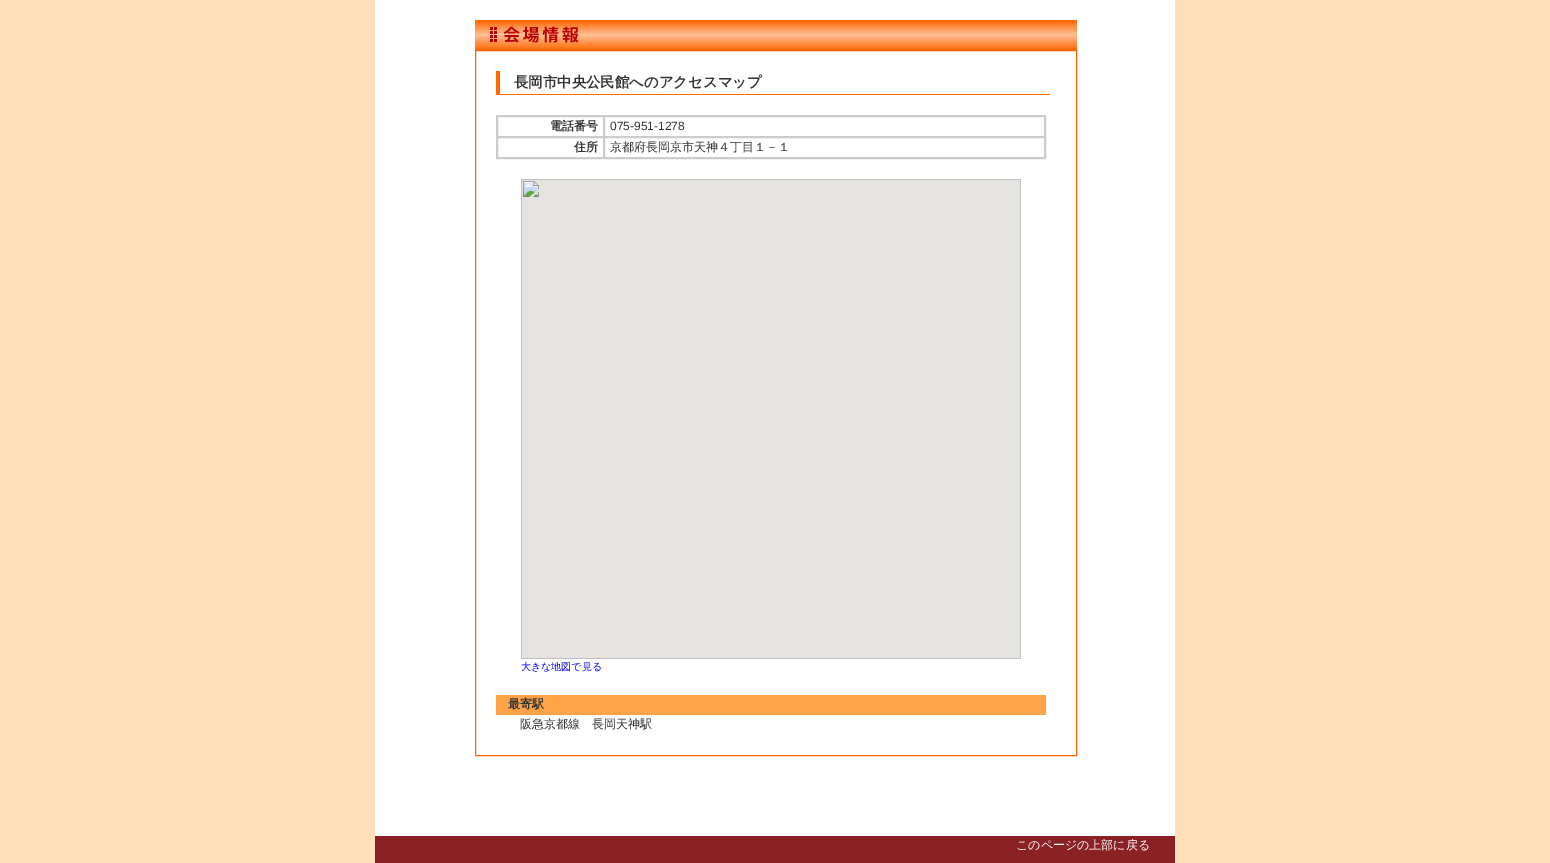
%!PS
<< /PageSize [1550 863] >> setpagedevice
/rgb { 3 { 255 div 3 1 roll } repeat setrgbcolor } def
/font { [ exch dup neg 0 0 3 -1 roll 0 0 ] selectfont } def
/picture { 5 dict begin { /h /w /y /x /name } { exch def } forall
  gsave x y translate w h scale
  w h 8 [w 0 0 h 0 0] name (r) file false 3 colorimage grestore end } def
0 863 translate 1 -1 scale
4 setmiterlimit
254 223 186 rgb
0 0 1550 863 rectfill
255 255 255 rgb
375 0 800 836 rectfill
(img/1.rgb) 475 20 602 30 picture
255 102 0 rgb
475.5 50.5 601 705 rectstroke
496 94 554 1 rectfill
496 71 4 24 rectfill
204 204 204 rgb
496.5 115.5 549 43 rectstroke
497.5 116.5 106 20 rectstroke
604.5 116.5 440 20 rectstroke
497.5 137.5 106 20 rectstroke
604.5 137.5 440 20 rectstroke
(img/2.rgb) 521 179 500 480 picture
255 163 70 rgb
496 695 550 20 rectfill
138 33 36 rgb
375 836 800 27 rectfill
/WenQuanYiZenHei-Bold 14.4 font
51 51 51 rgb
514 87 moveto (長岡市中央公民館へのアクセスマップ) show
/WenQuanYiZenHei-Bold 12 font
550 130 moveto (電話番号) show
/LiberationSans-Regular 12 font
610 130 moveto (075-951-1278) show
/WenQuanYiZenHei-Bold 12 font
574 151 moveto (住所) show
/WenQuanYiZenHei-Medium 12 font
610 151 moveto (京都府長岡京市天神４丁目１－１) show
/WenQuanYiZenHei-Medium 10 font
0 0 255 rgb
521 670 moveto (大きな地図で見る) show
/WenQuanYiZenHei-Bold 12 font
51 51 51 rgb
508 708 moveto (最寄駅) show
/WenQuanYiZenHei-Medium 12 font
520 728 moveto (阪急京都線　長岡天神駅) show
255 255 255 rgb
1016 849 moveto (このページの上部に戻る) show
showpage
